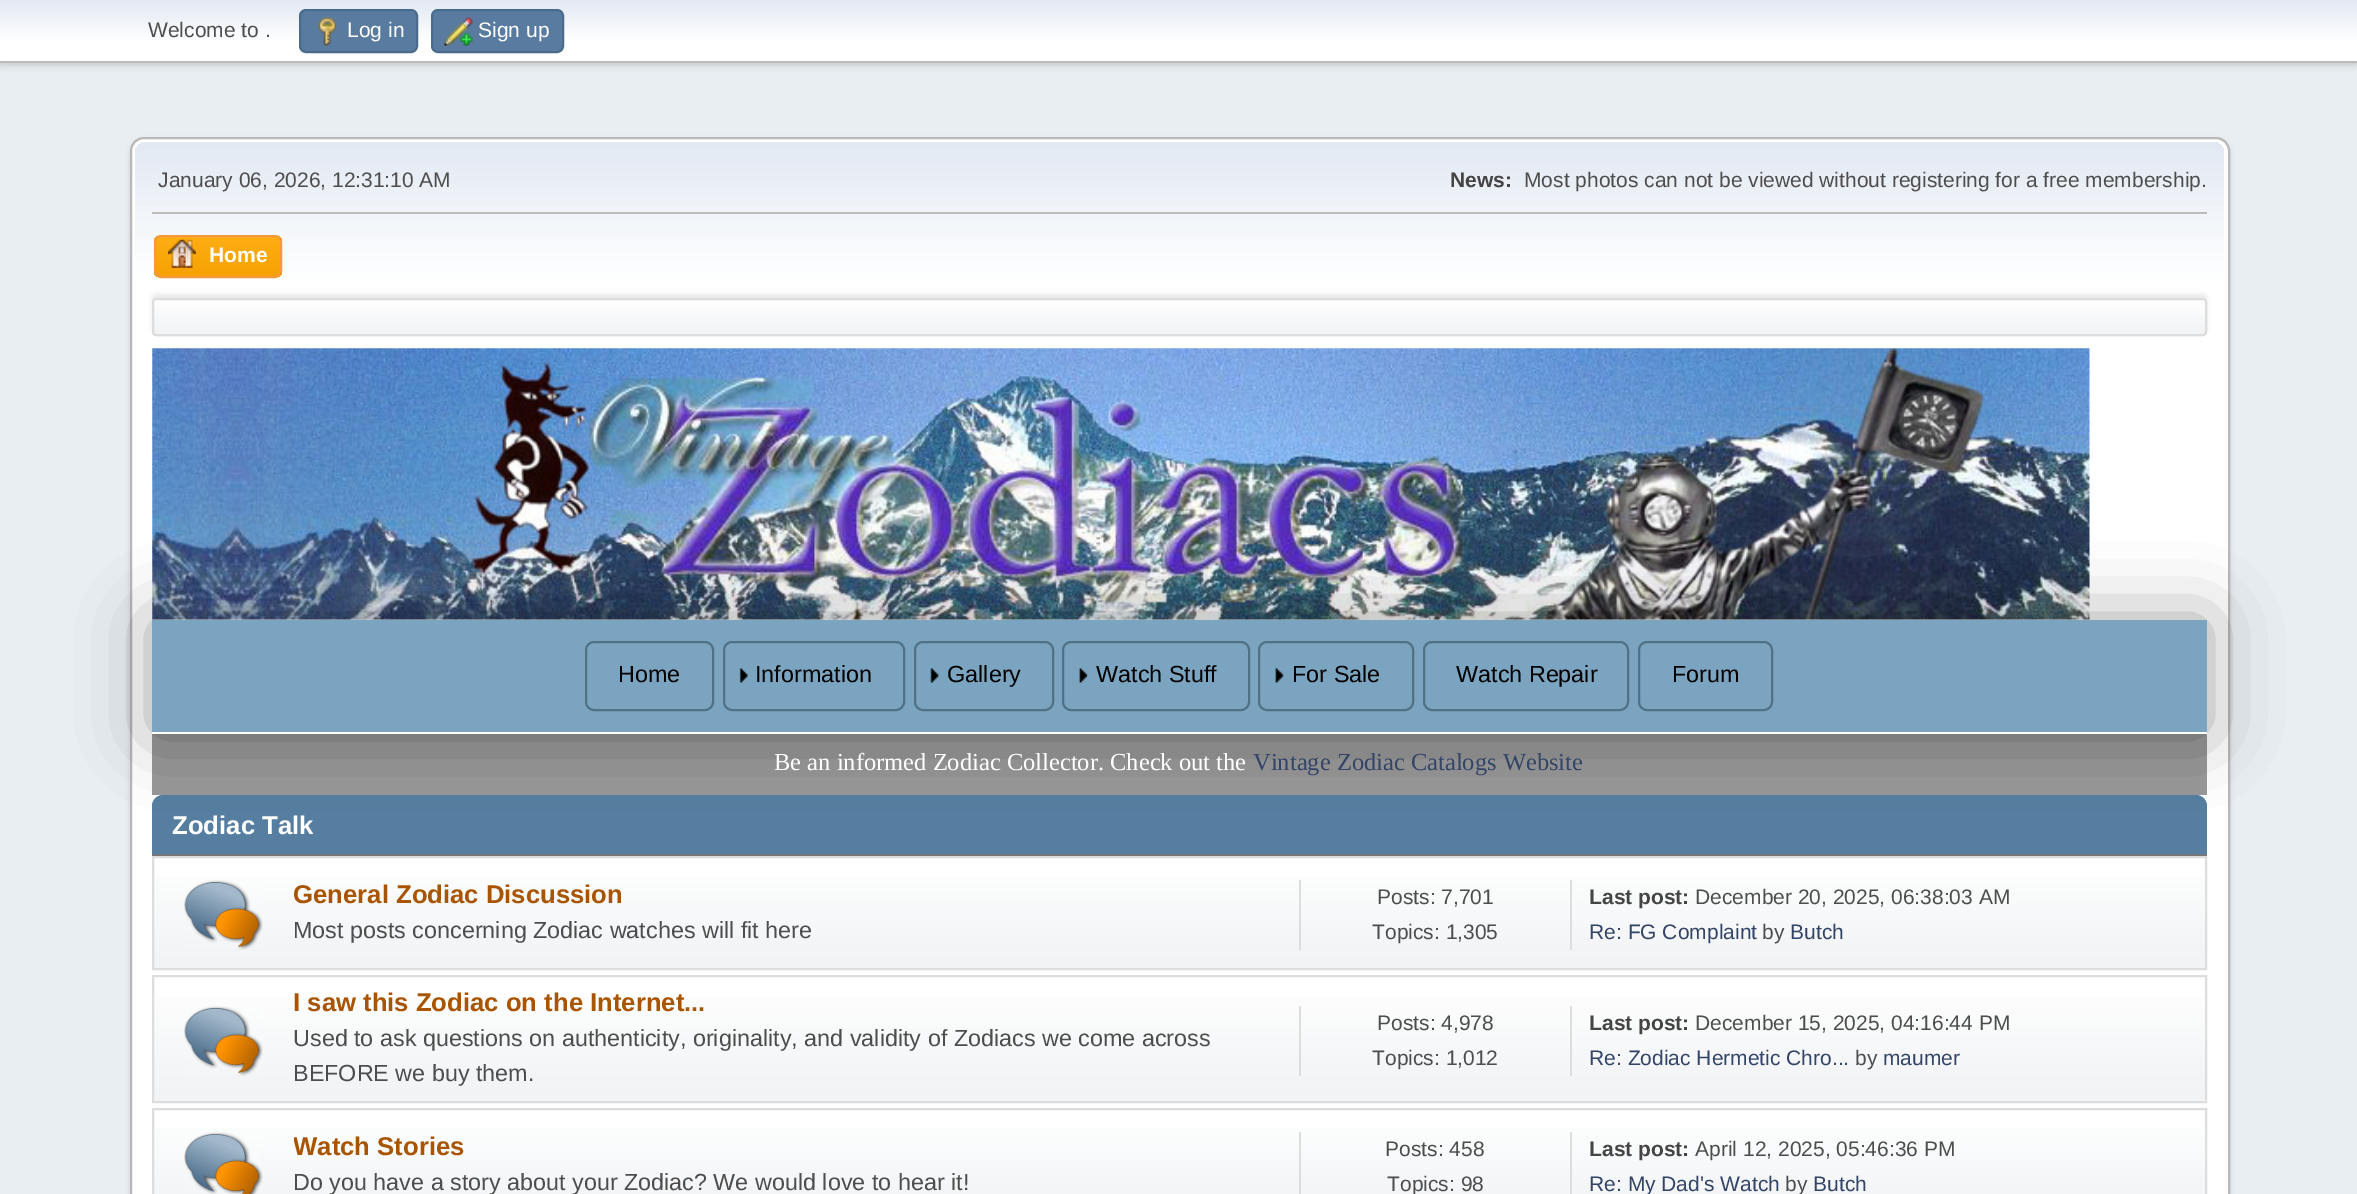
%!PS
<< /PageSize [2357 1194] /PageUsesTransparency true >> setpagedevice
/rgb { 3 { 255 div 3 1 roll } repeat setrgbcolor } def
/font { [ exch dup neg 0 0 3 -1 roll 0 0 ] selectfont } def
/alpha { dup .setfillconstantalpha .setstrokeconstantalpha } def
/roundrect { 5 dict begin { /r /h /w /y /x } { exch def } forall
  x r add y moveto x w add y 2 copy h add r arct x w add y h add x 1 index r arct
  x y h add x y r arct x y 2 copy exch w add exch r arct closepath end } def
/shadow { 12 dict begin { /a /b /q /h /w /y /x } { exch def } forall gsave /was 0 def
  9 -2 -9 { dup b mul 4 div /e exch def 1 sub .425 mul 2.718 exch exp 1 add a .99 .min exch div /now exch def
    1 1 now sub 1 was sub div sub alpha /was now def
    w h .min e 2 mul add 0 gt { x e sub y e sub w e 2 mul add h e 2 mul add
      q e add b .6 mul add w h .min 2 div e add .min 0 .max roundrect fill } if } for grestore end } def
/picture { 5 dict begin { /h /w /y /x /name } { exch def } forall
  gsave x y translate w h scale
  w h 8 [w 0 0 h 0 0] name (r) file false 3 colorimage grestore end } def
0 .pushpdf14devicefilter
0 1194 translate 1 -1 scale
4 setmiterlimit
233 238 242 rgb
0 0 2357 1194 rectfill
0 0 0 rgb
0 2 2357 63 0 3.5 0.16 shadow
gsave 0 0 moveto 2357 0 lineto 2357 61 lineto 0 61 lineto closepath clip newpath
<< /ShadingType 2 /ColorSpace /DeviceRGB /Coords [1179 0 1179 61] /Extend [true true] /Function << /FunctionType 3 /Domain [0 1] /Functions [<< /FunctionType 2 /Domain [0 1] /C0 [0.886 0.914 0.953] /C1 [1 1 1] /N 1 >> << /FunctionType 2 /Domain [0 1] /C0 [1 1 1] /C1 [1 1 1] /N 1 >>] /Bounds [0.7] /Encode [0 1 0 1] >> >> shfill grestore
187 187 187 rgb
0 61 2357 2 rectfill
89 123 159 rgb
300 10 117 42 6 roundrect gsave fill grestore
74 107 140 rgb
2 setlinewidth
stroke
(img/1.rgb) 318 17 19 29 picture
89 123 159 rgb
432 10 131 42 6 roundrect gsave fill grestore
74 107 140 rgb
stroke
(img/2.rgb) 444 17 29 29 picture
0 0 0 rgb
130 140 2100 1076 14 2.5 0.14 shadow
255 255 255 rgb
131 138 2098 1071 13 roundrect gsave fill grestore
184 184 184 rgb
stroke
gsave 146 142 moveto 2213 142 lineto 2219 142 2224 147 2224 153 curveto 2224 340 lineto 135 340 lineto 135 153 lineto 135 147 140 142 146 142 curveto closepath clip newpath
<< /ShadingType 2 /ColorSpace /DeviceRGB /Coords [1180 142 1180 340] /Extend [true true] /Function << /FunctionType 3 /Domain [0 1] /Functions [<< /FunctionType 2 /Domain [0 1] /C0 [0.886 0.914 0.953] /C1 [1 1 1] /N 1 >> << /FunctionType 2 /Domain [0 1] /C0 [1 1 1] /C1 [1 1 1] /N 1 >>] /Bounds [0.7] /Encode [0 1 0 1] >> >> shfill grestore
187 187 187 rgb
152 212 2055 2 rectfill
gsave
154 235 128 43 7 roundrect clip newpath
gsave 154 236 moveto 282 236 lineto 282 277 lineto 154 277 lineto closepath clip newpath
<< /ShadingType 2 /ColorSpace /DeviceRGB /Coords [218 236 218 277] /Extend [true true] /Function << /FunctionType 2 /Domain [0 1] /C0 [1 0.682 0.078] /C1 [0.961 0.631 0] /N 1 >> >> shfill grestore
grestore
244 154 58 rgb
155 236 126 41 6 roundrect stroke
(img/3.rgb) 168 239 28 29 picture
0 0 0 rgb
152 294 2055 39 4 2 0.08 shadow
gsave
152 298 2055 38 4 roundrect clip newpath
gsave 152 299 moveto 2207 299 lineto 2207 334 lineto 152 334 lineto closepath clip newpath
<< /ShadingType 2 /ColorSpace /DeviceRGB /Coords [1180 299 1180 334] /Extend [true true] /Function << /FunctionType 3 /Domain [0 1] /Functions [<< /FunctionType 2 /Domain [0 1] /C0 [1 1 1] /C1 [0.945 0.953 0.961] /N 1 >> << /FunctionType 2 /Domain [0 1] /C0 [0.945 0.953 0.961] /C1 [0.945 0.953 0.961] /N 1 >>] /Bounds [0.95] /Encode [0 1 0 1] >> >> shfill grestore
grestore
221 221 221 rgb
153 299 2053 36 3 roundrect stroke
(img/4.rgb) 152 348 1938 272 picture
153 153 153 rgb
152 734 2055 61 rectfill
85 126 160 rgb
163 795 moveto 2196 795 lineto 2202 795 2207 800 2207 806 curveto 2207 856 lineto 152 856 lineto 152 806 lineto 152 800 157 795 163 795 curveto closepath fill
0 0 0 rgb
152 620 2055 113 0 35 0.35 shadow
123 164 193 rgb
152 620 2055 112 rectfill
255 255 255 rgb
152 732 2055 2 rectfill
81 113 134 rgb
586 642 127 68 8 roundrect stroke
(img/5.rgb) 739 668 9 15 picture
724 642 180 68 8 roundrect stroke
(img/6.rgb) 930 668 9 15 picture
915 642 138 68 8 roundrect stroke
(img/7.rgb) 1079 668 9 15 picture
1063 642 186 68 8 roundrect stroke
(img/7.rgb) 1275 668 9 15 picture
1259 642 154 68 8 roundrect stroke
1424 642 204 68 8 roundrect stroke
1639 642 133 68 8 roundrect stroke
119 119 119 rgb
152 854 2055 2 rectfill
gsave 154 876 moveto 2205 876 lineto 2205 968 lineto 154 968 lineto closepath clip newpath
<< /ShadingType 2 /ColorSpace /DeviceRGB /Coords [1180 857 1180 968] /Extend [true true] /Function << /FunctionType 3 /Domain [0 1] /Functions [<< /FunctionType 2 /Domain [0 1] /C0 [1 1 1] /C1 [0.945 0.953 0.961] /N 1 >> << /FunctionType 2 /Domain [0 1] /C0 [0.945 0.953 0.961] /C1 [0.945 0.953 0.961] /N 1 >>] /Bounds [0.95] /Encode [0 1 0 1] >> >> shfill grestore
221 221 221 rgb
153 857 2053 112 rectstroke
(img/8.rgb) 184 880 79 70 picture
1570 880 2 70 rectfill
1299 880 2 70 rectfill
gsave 154 997 moveto 2205 997 lineto 2205 1101 lineto 154 1101 lineto closepath clip newpath
<< /ShadingType 2 /ColorSpace /DeviceRGB /Coords [1180 976 1180 1101] /Extend [true true] /Function << /FunctionType 3 /Domain [0 1] /Functions [<< /FunctionType 2 /Domain [0 1] /C0 [1 1 1] /C1 [0.945 0.953 0.961] /N 1 >> << /FunctionType 2 /Domain [0 1] /C0 [0.945 0.953 0.961] /C1 [0.945 0.953 0.961] /N 1 >>] /Bounds [0.95] /Encode [0 1 0 1] >> >> shfill grestore
153 976 2053 126 rectstroke
(img/9.rgb) 184 1006 79 70 picture
1570 1006 2 70 rectfill
1299 1006 2 70 rectfill
gsave 154 1128 moveto 2205 1128 lineto 2205 1194 lineto 154 1194 lineto closepath clip newpath
<< /ShadingType 2 /ColorSpace /DeviceRGB /Coords [1180 1109 1180 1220] /Extend [true true] /Function << /FunctionType 3 /Domain [0 1] /Functions [<< /FunctionType 2 /Domain [0 1] /C0 [1 1 1] /C1 [0.945 0.953 0.961] /N 1 >> << /FunctionType 2 /Domain [0 1] /C0 [0.945 0.953 0.961] /C1 [0.945 0.953 0.961] /N 1 >>] /Bounds [0.95] /Encode [0 1 0 1] >> >> shfill grestore
153 1109 2053 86 rectstroke
(img/10.rgb) 184 1132 79 62 picture
1570 1132 2 62 rectfill
1299 1132 2 62 rectfill
/LiberationSans-Regular 21 font
77 77 77 rgb
148 37 moveto (Welcome to .) show
255 255 255 rgb
347 37 moveto (Log in) show
478 37 moveto (Sign up) show
77 77 77 rgb
158 187 moveto (January 06, 2026, 12:31:10 AM) show
/LiberationSans-Bold 21 font
68 68 68 rgb
1450 187 moveto (News:) show
/LiberationSans-Regular 21 font
77 77 77 rgb
1524 187 moveto (Most photos can not be viewed without registering for a free membership.) show
/LiberationSans-Bold 21 font
255 255 255 rgb
209 262 moveto (Home) show
/LiberationSans-Regular 23.35 font
0 0 0 rgb
[
  [(Home) 618 682]
  [(Information) 755 682]
  [(Gallery) 947 682]
  [(Watch Stuff) 1096 682]
  [(For Sale) 1292 682]
  [(Watch Repair) 1456 682]
  [(Forum) 1672 682]
] { aload pop moveto show } forall
/LiberationSerif-Regular 24.5 font
255 255 255 rgb
774 770 moveto (Be an informed Zodiac Collector. Check out the) show
51 68 102 rgb
1253 770 moveto (Vintage Zodiac Catalogs Website) show
/LiberationSans-Bold 25.7 font
255 255 255 rgb
172 834 moveto (Zodiac Talk) show
168 84 0 rgb
293 903 moveto (General Zodiac Discussion) show
/LiberationSans-Regular 23.35 font
77 77 77 rgb
293 938 moveto (Most posts concerning Zodiac watches will fit here) show
/LiberationSans-Regular 21 font
1377 904 moveto (Posts: 7,701) show
1372 939 moveto (Topics: 1,305) show
/LiberationSans-Bold 21 font
68 68 68 rgb
1589 904 moveto (Last post:) show
/LiberationSans-Regular 21 font
77 77 77 rgb
1695 904 moveto (December 20, 2025, 06:38:03 AM) show
51 68 102 rgb
1589 939 moveto (Re: FG Complaint) show
77 77 77 rgb
1762 939 moveto (by) show
51 68 102 rgb
1790 939 moveto (Butch) show
/LiberationSans-Bold 25.7 font
168 84 0 rgb
293 1011 moveto (I saw this Zodiac on the Internet...) show
/LiberationSans-Regular 23.35 font
77 77 77 rgb
293 1046 moveto (Used to ask questions on authenticity, originality, and validity of Zodiacs we come across) show
293 1081 moveto (BEFORE we buy them.) show
/LiberationSans-Regular 21 font
1377 1030 moveto (Posts: 4,978) show
1372 1065 moveto (Topics: 1,012) show
/LiberationSans-Bold 21 font
68 68 68 rgb
1589 1030 moveto (Last post:) show
/LiberationSans-Regular 21 font
77 77 77 rgb
1695 1030 moveto (December 15, 2025, 04:16:44 PM) show
51 68 102 rgb
1589 1065 moveto (Re: Zodiac Hermetic Chro...) show
77 77 77 rgb
1855 1065 moveto (by) show
51 68 102 rgb
1883 1065 moveto (maumer) show
gsave
294 1120 987 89 rectclip
/LiberationSans-Bold 25.7 font
168 84 0 rgb
293 1155 moveto (Watch Stories) show
grestore
/LiberationSans-Regular 23.35 font
77 77 77 rgb
293 1190 moveto (Do you have a story about your Zodiac? We would love to hear it!) show
/LiberationSans-Regular 21 font
1385 1156 moveto (Posts: 458) show
1387 1191 moveto (Topics: 98) show
/LiberationSans-Bold 21 font
68 68 68 rgb
1589 1156 moveto (Last post:) show
/LiberationSans-Regular 21 font
77 77 77 rgb
1695 1156 moveto (April 12, 2025, 05:46:36 PM) show
51 68 102 rgb
1589 1191 moveto (Re: My Dad's Watch) show
77 77 77 rgb
1785 1191 moveto (by) show
51 68 102 rgb
1813 1191 moveto (Butch) show
.poppdf14devicefilter showpage
